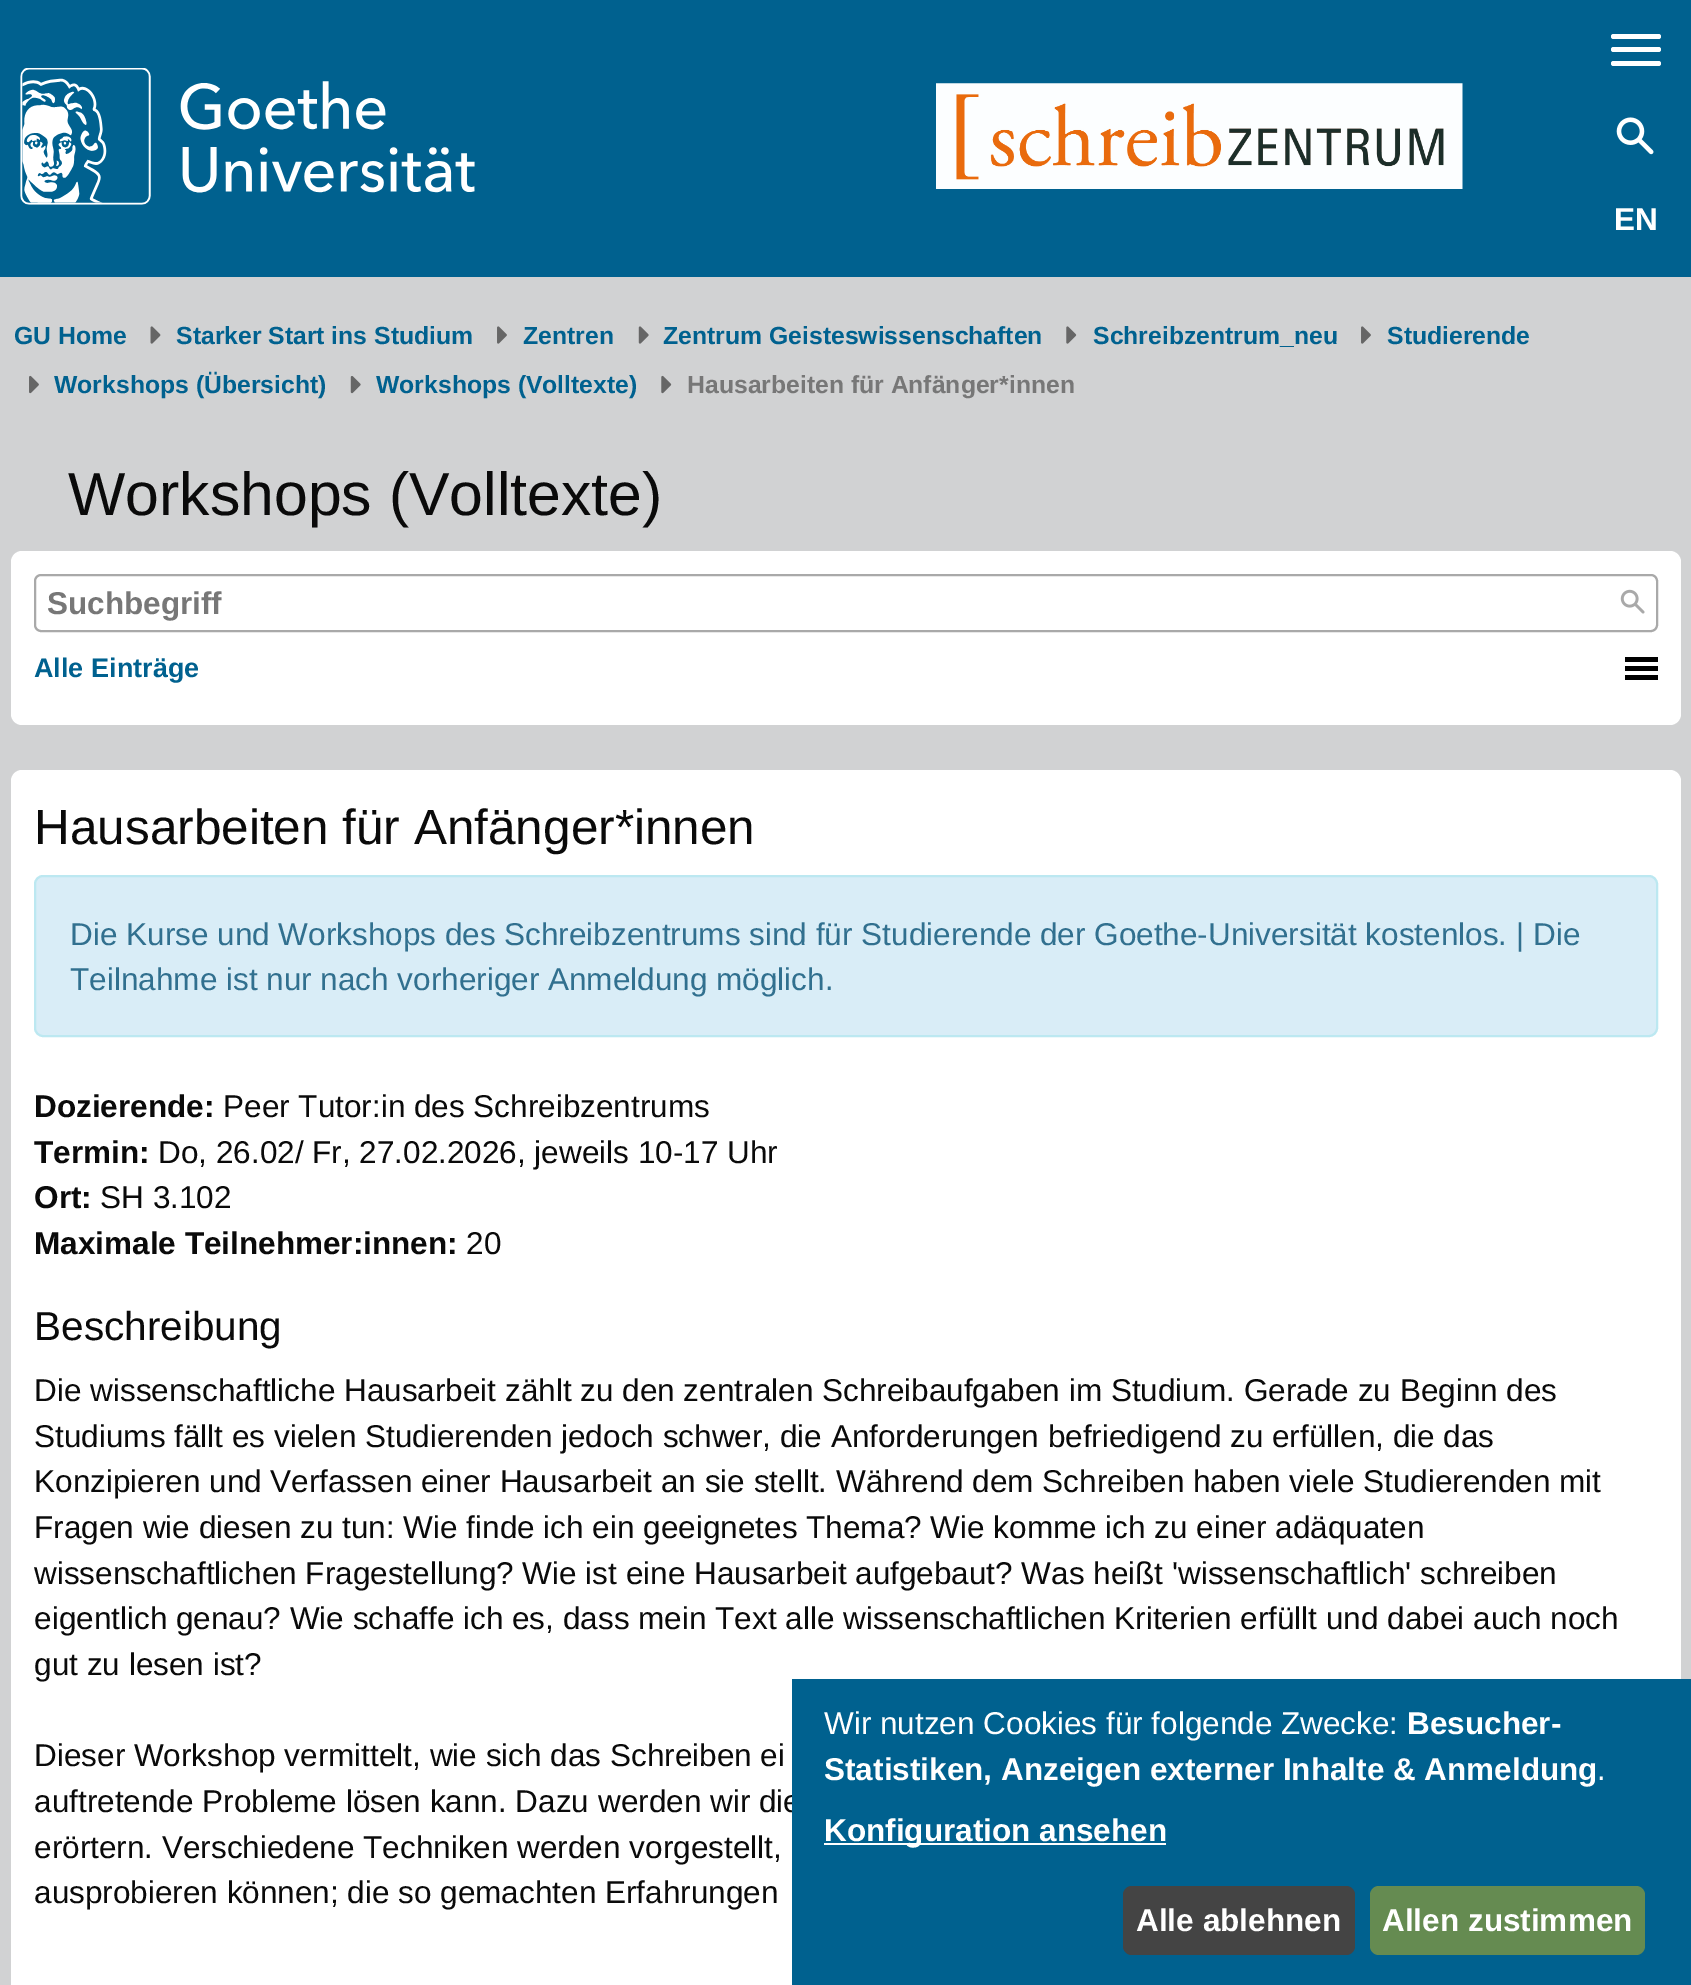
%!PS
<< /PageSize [1691 1985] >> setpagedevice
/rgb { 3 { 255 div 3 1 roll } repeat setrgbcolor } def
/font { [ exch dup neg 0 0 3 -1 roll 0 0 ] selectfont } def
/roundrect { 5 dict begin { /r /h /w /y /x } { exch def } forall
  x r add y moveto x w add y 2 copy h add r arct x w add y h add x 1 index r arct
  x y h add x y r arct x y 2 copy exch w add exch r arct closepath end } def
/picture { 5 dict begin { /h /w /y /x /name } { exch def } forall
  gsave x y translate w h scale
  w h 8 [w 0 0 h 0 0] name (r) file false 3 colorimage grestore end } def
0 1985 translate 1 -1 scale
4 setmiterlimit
0 97 143 rgb
0 0 1691 1985 rectfill
(img/1.rgb) 20 68 455 137 picture
(img/2.rgb) 936 83 527 106 picture
255 255 255 rgb
1611 34 50 5 2.5 roundrect fill
1611 47 50 5 2.5 roundrect fill
1611 61 50 5 2.5 roundrect fill
(img/3.rgb) 1616 117 38 38 picture
209 210 211 rgb
0 277 1691 1708 rectfill
(img/4.rgb) 150 326 11 18 picture
(img/5.rgb) 497 326 10 18 picture
(img/6.rgb) 638 326 11 18 picture
(img/7.rgb) 1066 326 11 18 picture
(img/5.rgb) 1361 326 10 18 picture
(img/8.rgb) 29 375 10 19 picture
(img/9.rgb) 350 376 11 18 picture
(img/10.rgb) 661 375 11 19 picture
255 255 255 rgb
11 551 1670 174 11 roundrect fill
169 169 169 rgb
2 setlinewidth
35 575 1622 56 6 roundrect stroke
(img/11.rgb) 1620 589 25 25 picture
[
  [1625 657 33 5 0 0 0]
  [1625 666 33 5 0 0 0]
  [1625 675 33 5 0 0 0]
] { aload pop rgb rectfill } forall
255 255 255 rgb
11 770 1670 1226 11 roundrect fill
217 237 247 rgb
35 876 1622 160 8 roundrect gsave fill grestore
188 232 241 rgb
stroke
/LiberationSans-Bold 31.5 font
255 255 255 rgb
1614 230 moveto (EN) show
/LiberationSans-Bold 24.75 font
0 97 143 rgb
[
  [(GU Home) 14 344]
  [(Starker Start ins Studium) 176 344]
  [(Zentren) 523 344]
  [(Zentrum Geisteswissenschaften) 663 344]
  [(Schreibzentrum_neu) 1093 344]
  [(Studierende) 1387 344]
  [(Workshops \(Übersicht\)) 54 393]
  [(Workshops \(Volltexte\)) 376 393]
] { aload pop moveto show } forall
119 119 119 rgb
687 393 moveto (Hausarbeiten für Anfänger*innen) show
/LiberationSans-Regular 60.75 font
10 10 10 rgb
68 515 moveto (Workshops \(Volltexte\)) show
/LiberationSans-Bold 31.5 font
119 119 119 rgb
47 614 moveto (Suchbegriff) show
/LiberationSans-Bold 27 font
0 97 143 rgb
34 677 moveto (Alle Einträge) show
/LiberationSans-Regular 49.5 font
10 10 10 rgb
34 844 moveto (Hausarbeiten für Anfänger*innen) show
/LiberationSans-Regular 31.5 font
49 112 143 rgb
70 945 moveto (Die Kurse und Workshops des Schreibzentrums sind für Studierende der Goethe-Universität kostenlos. | Die) show
70 990 moveto (Teilnahme ist nur nach vorheriger Anmeldung möglich.) show
/LiberationSans-Bold 31.5 font
10 10 10 rgb
34 1117 moveto (Dozierende:) show
/LiberationSans-Regular 31.5 font
223 1117 moveto (Peer Tutor:in des Schreibzentrums) show
/LiberationSans-Bold 31.5 font
34 1163 moveto (Termin:) show
/LiberationSans-Regular 31.5 font
158 1163 moveto (Do, 26.02/ Fr, 27.02.2026, jeweils 10-17 Uhr) show
/LiberationSans-Bold 31.5 font
34 1208 moveto (Ort:) show
/LiberationSans-Regular 31.5 font
100 1208 moveto (SH 3.102) show
/LiberationSans-Bold 31.5 font
34 1254 moveto (Maximale Teilnehmer:innen:) show
/LiberationSans-Regular 31.5 font
466 1254 moveto (20) show
/LiberationSans-Regular 40.5 font
34 1340 moveto (Beschreibung) show
/LiberationSans-Regular 31.5 font
[
  [(Die wissenschaftliche Hausarbeit zählt zu den zentralen Schreibaufgaben im Studium. Gerade zu Beginn des) 34 1401]
  [(Studiums fällt es vielen Studierenden jedoch schwer, die Anforderungen befriedigend zu erfüllen, die das) 34 1447]
  [(Konzipieren und Verfassen einer Hausarbeit an sie stellt. Während dem Schreiben haben viele Studierenden mit) 34 1492]
  [(Fragen wie diesen zu tun: Wie finde ich ein geeignetes Thema? Wie komme ich zu einer adäquaten) 34 1538]
  [(wissenschaftlichen Fragestellung? Wie ist eine Hausarbeit aufgebaut? Was heißt 'wissenschaftlich' schreiben) 34 1584]
  [(eigentlich genau? Wie schaffe ich es, dass mein Text alle wissenschaftlichen Kriterien erfüllt und dabei auch noch) 34 1629]
  [(gut zu lesen ist?) 34 1675]
  [(Dieser Workshop vermittelt, wie sich das Schreiben ei) 34 1766]
  [(auftretende Probleme lösen kann. Dazu werden wir die) 34 1812]
  [(erörtern. Verschiedene Techniken werden vorgestellt,) 34 1858]
  [(ausprobieren können; die so gemachten Erfahrungen) 34 1903]
] { aload pop moveto show } forall
0 97 143 rgb
792 1679 899 306 rectfill
255 255 255 rgb
824 1734 moveto (Wir nutzen Cookies für folgende Zwecke:) show
/LiberationSans-Bold 31.5 font
1407 1734 moveto (Besucher-) show
824 1780 moveto (Statistiken, Anzeigen externer Inhalte & Anmeldung) show
/LiberationSans-Regular 31.5 font
1597 1780 moveto (.) show
824 1843 342 2 rectfill
/LiberationSans-Bold 31.5 font
824 1841 moveto (Konfiguration ansehen) show
68 68 68 rgb
1123 1886 232 69 9 roundrect fill
255 255 255 rgb
1136 1931 moveto (Alle ablehnen) show
101 139 81 rgb
1370 1886 275 69 9 roundrect fill
255 255 255 rgb
1382 1931 moveto (Allen zustimmen) show
showpage
